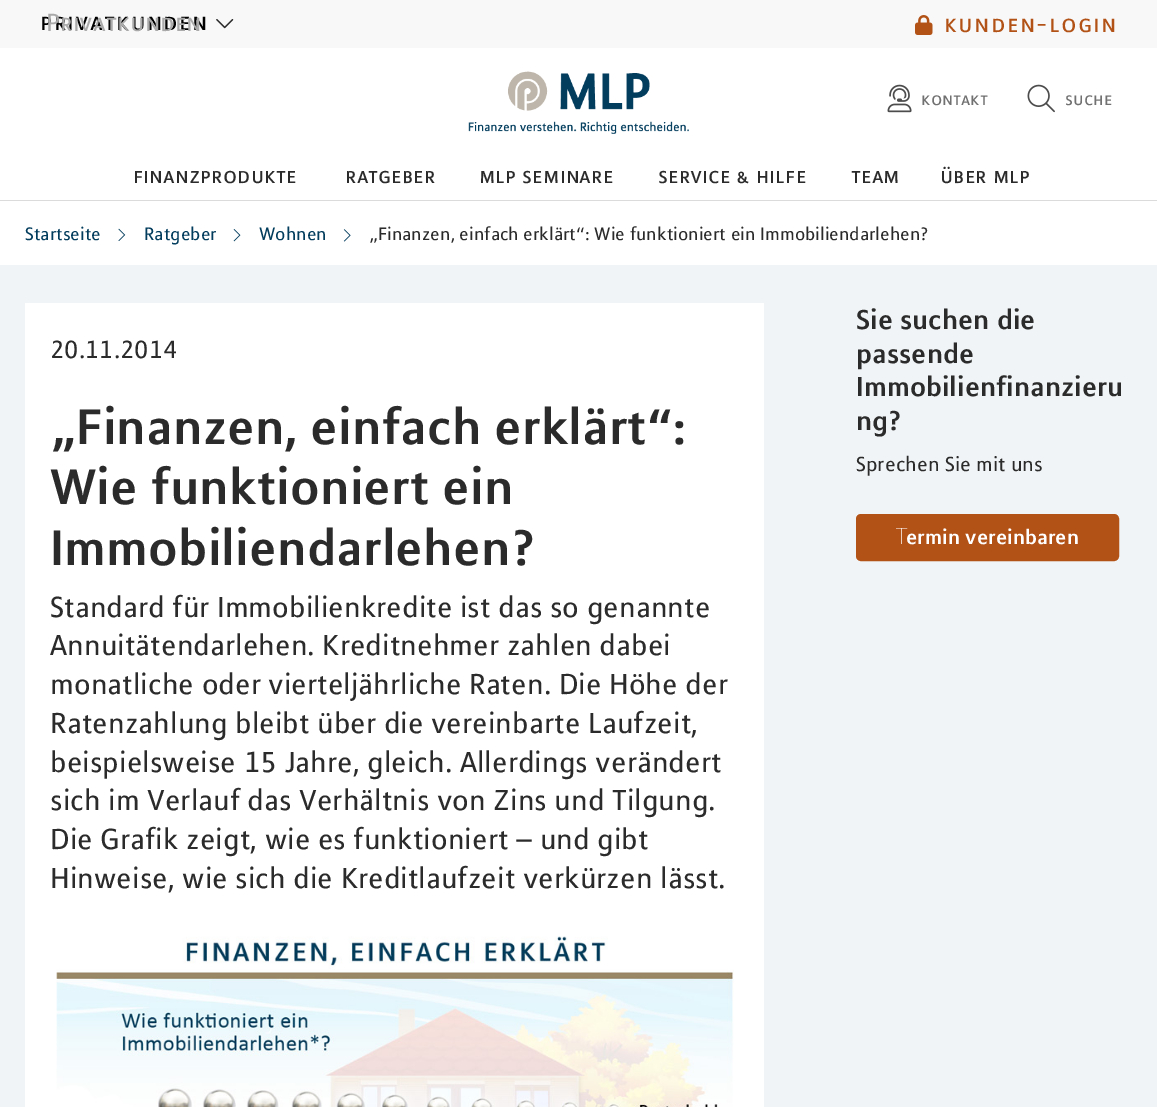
%!PS
<< /PageSize [1157 1107] >> setpagedevice
/rgb { 3 { 255 div 3 1 roll } repeat setrgbcolor } def
/font { [ exch dup neg 0 0 3 -1 roll 0 0 ] selectfont } def
/roundrect { 5 dict begin { /r /h /w /y /x } { exch def } forall
  x r add y moveto x w add y 2 copy h add r arct x w add y h add x 1 index r arct
  x y h add x y r arct x y 2 copy exch w add exch r arct closepath end } def
/picture { 5 dict begin { /h /w /y /x /name } { exch def } forall
  gsave x y translate w h scale
  w h 8 [w 0 0 h 0 0] name (r) file false 3 colorimage grestore end } def
0 1107 translate 1 -1 scale
4 setmiterlimit
255 255 255 rgb
0 0 1157 1107 rectfill
219 219 219 rgb
0 200 1157 1 rectfill
248 248 248 rgb
0 0 1157 48 rectfill
(img/1.rgb) 216 19 18 10 picture
(img/2.rgb) 915 15 18 20 picture
(img/3.rgb) 468 71 221 63 picture
(img/4.rgb) 887 84 25 29 picture
(img/5.rgb) 1027 84 28 29 picture
241 244 246 rgb
0 265 1157 842 rectfill
(img/6.rgb) 118 228 8 13 picture
(img/7.rgb) 233 229 8 13 picture
(img/8.rgb) 343 229 8 13 picture
255 255 255 rgb
25 303 739 804 rectfill
(img/9.rgb) 56 936 678 171 picture
178 82 23 rgb
857.5 515.5 260 44 3.5 roundrect gsave fill grestore
3 setlinewidth
stroke
/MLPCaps-Regular 27.5 font
0 0 0 rgb
40 30 moveto 1.25 0 (privatkunden) ashow
170 170 170 rgb
46 31 moveto (Privatkunden) show
178 82 23 rgb
944 32 moveto 1.25 0 (kunden-login) ashow
/MLPCaps-Regular 20 font
113 113 113 rgb
921 105 moveto (kontakt) show
1065 105 moveto (suche) show
/MLPCaps-Regular 25 font
43 43 43 rgb
[
  [(finanzprodukte) 133 183]
  [(ratgeber) 345 183]
  [(mlp seminare) 479 183]
  [(service & hilfe) 658 183]
  [(team) 851 183]
  [(über mlp) 940 183]
] { aload pop moveto show } forall
/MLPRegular-Regular 20 font
3 61 93 rgb
[
  [(Startseite) 25 240]
  [(Ratgeber) 144 240]
  [(Wohnen) 259 240]
] { aload pop moveto show } forall
43 43 43 rgb
369 240 moveto („Finanzen, einfach erklärt“: Wie funktioniert ein Immobiliendarlehen?) show
/MLPRegular-Regular 27.5 font
50 358 moveto (20.11.2014) show
/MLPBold-Bold 55 font
[
  [(„Finanzen, einfach erklärt“:) 50 444]
  [(Wie funktioniert ein) 50 504]
  [(Immobiliendarlehen?) 50 565]
] { aload pop moveto show } forall
/MLPRegular-Regular 32.2 font
[
  [(Standard für Immobilienkredite ist das so genannte) 50 617]
  [(Annuitätendarlehen. Kreditnehmer zahlen dabei) 50 655]
  [(monatliche oder vierteljährliche Raten. Die Höhe der) 50 694]
  [(Ratenzahlung bleibt über die vereinbarte Laufzeit,) 50 733]
  [(beispielsweise 15 Jahre, gleich. Allerdings verändert) 50 772]
  [(sich im Verlauf das Verhältnis von Zins und Tilgung.) 50 810]
  [(Die Grafik zeigt, wie es funktioniert – und gibt) 50 849]
  [(Hinweise, wie sich die Kreditlaufzeit verkürzen lässt.) 50 888]
] { aload pop moveto show } forall
/MLPBold-Bold 30 font
[
  [(Sie suchen die) 856 329]
  [(passende) 856 363]
  [(Immobilienfinanzieru) 856 396]
  [(ng?) 856 430]
] { aload pop moveto show } forall
/MLPRegular-Regular 22.5 font
856 471 moveto (Sprechen Sie mit uns) show
/NotoSans-Thin 22.5 font
255 255 255 rgb
896 544 moveto (T) show
/MLPBold-Bold 22.5 font
906 544 moveto (ermin vereinbaren) show
showpage
